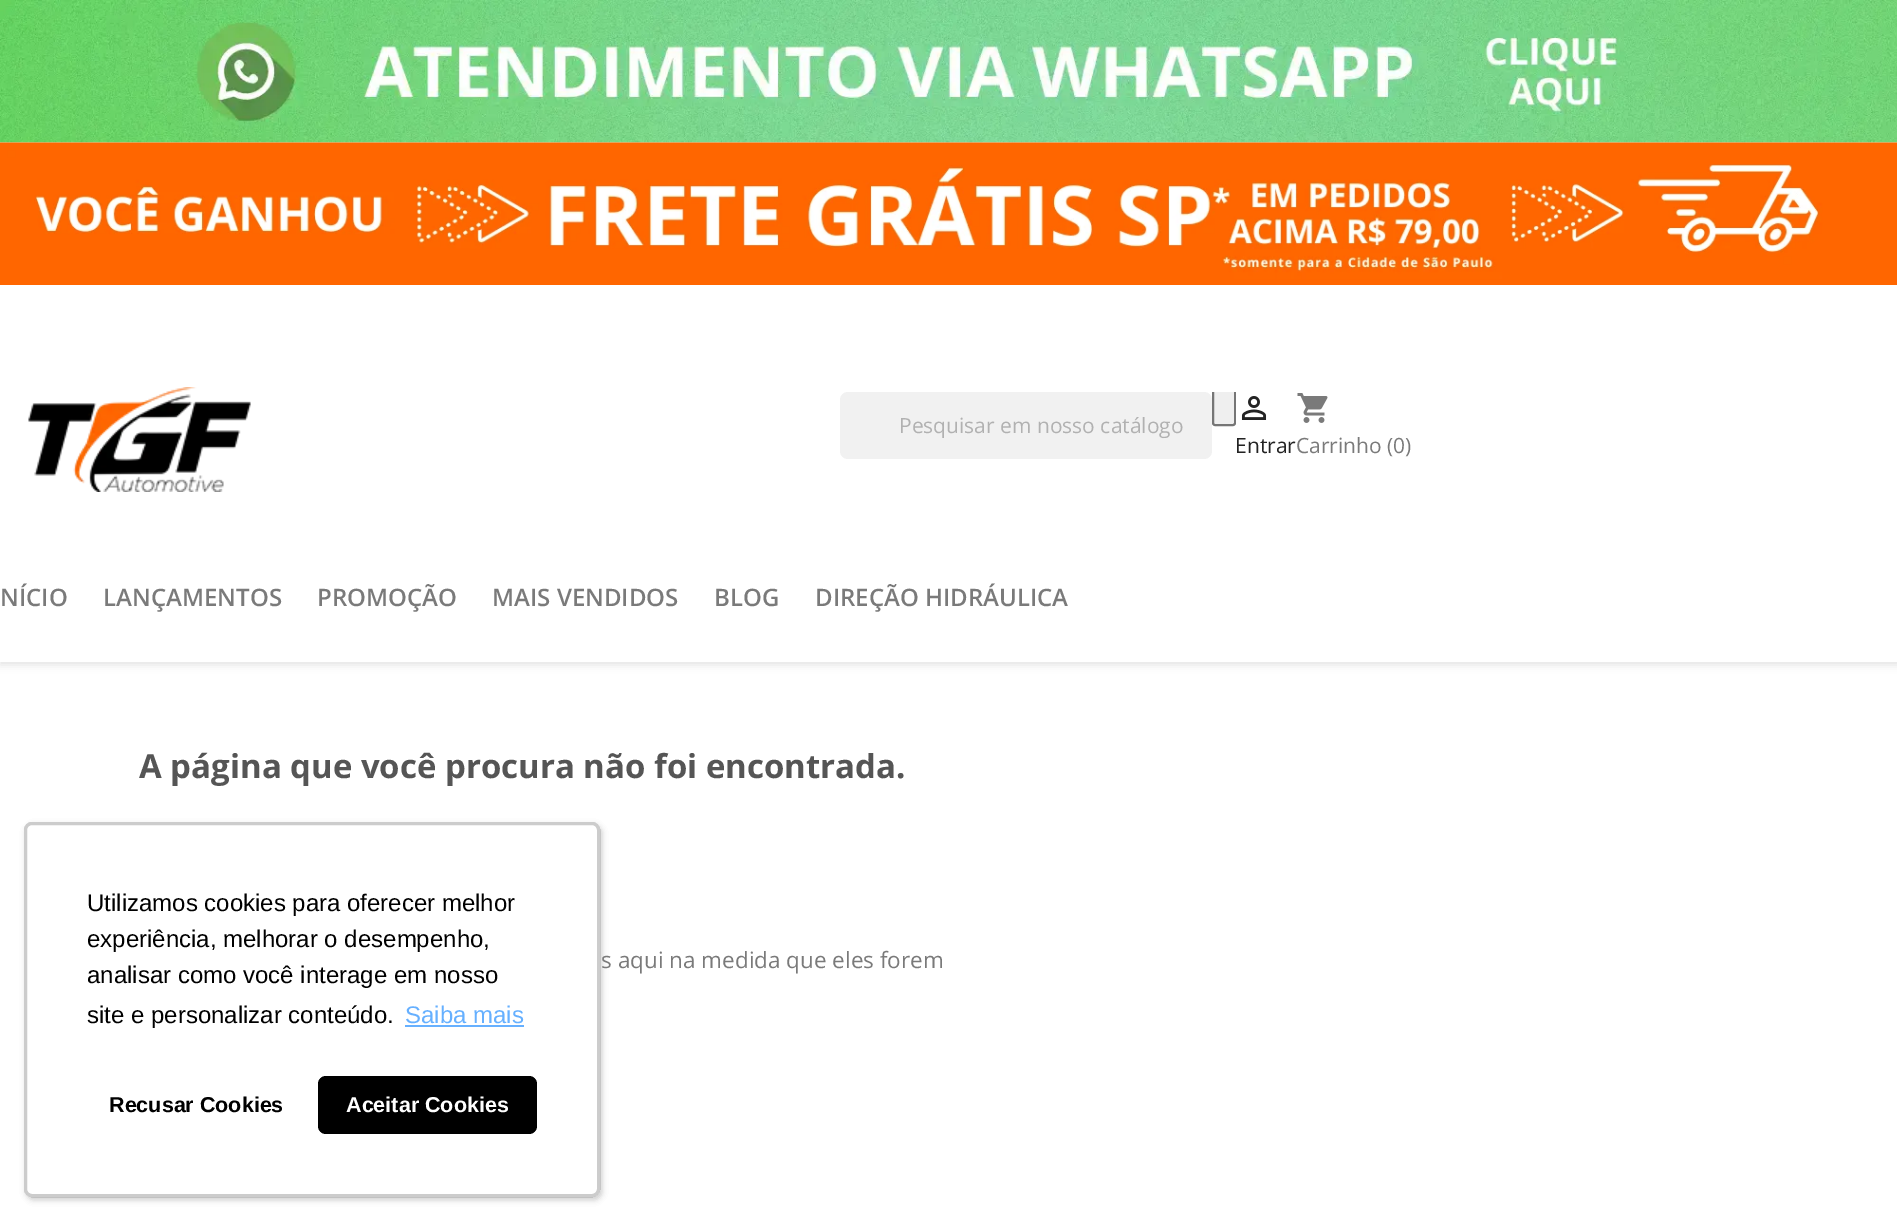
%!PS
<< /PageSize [1897 1221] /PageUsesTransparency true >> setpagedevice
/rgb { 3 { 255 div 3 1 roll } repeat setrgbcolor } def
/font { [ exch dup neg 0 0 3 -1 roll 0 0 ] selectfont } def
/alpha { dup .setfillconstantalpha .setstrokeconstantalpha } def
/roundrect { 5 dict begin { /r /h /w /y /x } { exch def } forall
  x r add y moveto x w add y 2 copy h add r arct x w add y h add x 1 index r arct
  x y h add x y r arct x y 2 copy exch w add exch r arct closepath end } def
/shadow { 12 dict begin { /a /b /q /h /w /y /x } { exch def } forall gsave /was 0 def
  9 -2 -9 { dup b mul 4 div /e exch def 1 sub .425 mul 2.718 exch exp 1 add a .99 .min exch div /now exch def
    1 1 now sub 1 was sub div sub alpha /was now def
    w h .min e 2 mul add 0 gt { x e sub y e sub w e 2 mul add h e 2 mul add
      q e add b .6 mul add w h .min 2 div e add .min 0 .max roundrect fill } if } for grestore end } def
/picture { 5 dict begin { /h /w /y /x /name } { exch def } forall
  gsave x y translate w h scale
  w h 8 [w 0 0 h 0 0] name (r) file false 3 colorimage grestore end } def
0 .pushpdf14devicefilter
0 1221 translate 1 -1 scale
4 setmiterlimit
255 255 255 rgb
0 0 1897 1221 rectfill
0 0 0 rgb
0 3 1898 662 0 4 0.11 shadow
255 255 255 rgb
0 142 1897 520 rectfill
(img/1.rgb) 0 0 1897 143 picture
(img/2.rgb) 0 142 1897 143 picture
(img/3.rgb) 28 387 223 105 picture
241 241 241 rgb
840 392 372 67 8 roundrect fill
239 239 239 rgb
1212 392 moveto 1236 392 lineto 1236 423 lineto 1236 424.5 1234.5 426 1233 426 curveto 1215 426 lineto 1213.5 426 1212 424.5 1212 423 curveto closepath fill
gsave
840 392 396 67 rectclip
118 118 118 rgb
2 setlinewidth
1213 360 22 65 2 roundrect stroke
grestore
(img/4.rgb) 1241 396 26 24 picture
(img/5.rgb) 1297 393 31 30 picture
0 0 0 rgb
26 825 576 375 8 3 0.1 shadow
0.2 alpha
3 setlinewidth
25.5 823.5 573 372 6.5 roundrect stroke
1 alpha
26 825 576 375 8 3 0.1 shadow
255 255 255 rgb
24 822 576 375 8 roundrect fill
0.2 alpha
0 0 0 rgb
25.5 823.5 573 372 6.5 roundrect stroke
1 alpha
102 176 255 rgb
405 1025 119 2 rectfill
0 0 0 rgb
318 1076 219 58 8 roundrect fill
/OpenSans-Regular 21 font
177 177 177 rgb
899 433 moveto (Pesquisar em nosso catálogo) show
35 35 35 rgb
1235 453 moveto (Entrar) show
122 122 122 rgb
1296 453 moveto (Carrinho \(0\)) show
/OpenSans-SemiBold 24 font
[
  [(NÍCIO) 0 606]
  [(LANÇAMENTOS) 103 606]
  [(PROMOÇÃO) 317 606]
  [(MAIS VENDIDOS) 492 606]
  [(BLOG) 714 606]
  [(DIREÇÃO HIDRÁULICA) 815 606]
] { aload pop moveto show } forall
/OpenSans-Bold 33 font
85 85 85 rgb
139 778 moveto (A página que você procura não foi encontrada.) show
/OpenSans-Regular 22.5 font
122 122 122 rgb
601 968 moveto (s aqui na medida que eles forem) show
/LiberationSans-Regular 24 font
0 0 0 rgb
[
  [(Utilizamos cookies para oferecer melhor) 87 911]
  [(experiência, melhorar o desempenho,) 87 947]
  [(analisar como você interage em nosso) 87 983]
  [(site e personalizar conteúdo.) 87 1023]
] { aload pop moveto show } forall
102 176 255 rgb
405 1023 moveto (Saiba mais) show
/LiberationSans-Bold 21.5 font
0 0 0 rgb
109 1112 moveto (Recusar Cookies) show
255 255 255 rgb
346 1112 moveto (Aceitar Cookies) show
.poppdf14devicefilter showpage
